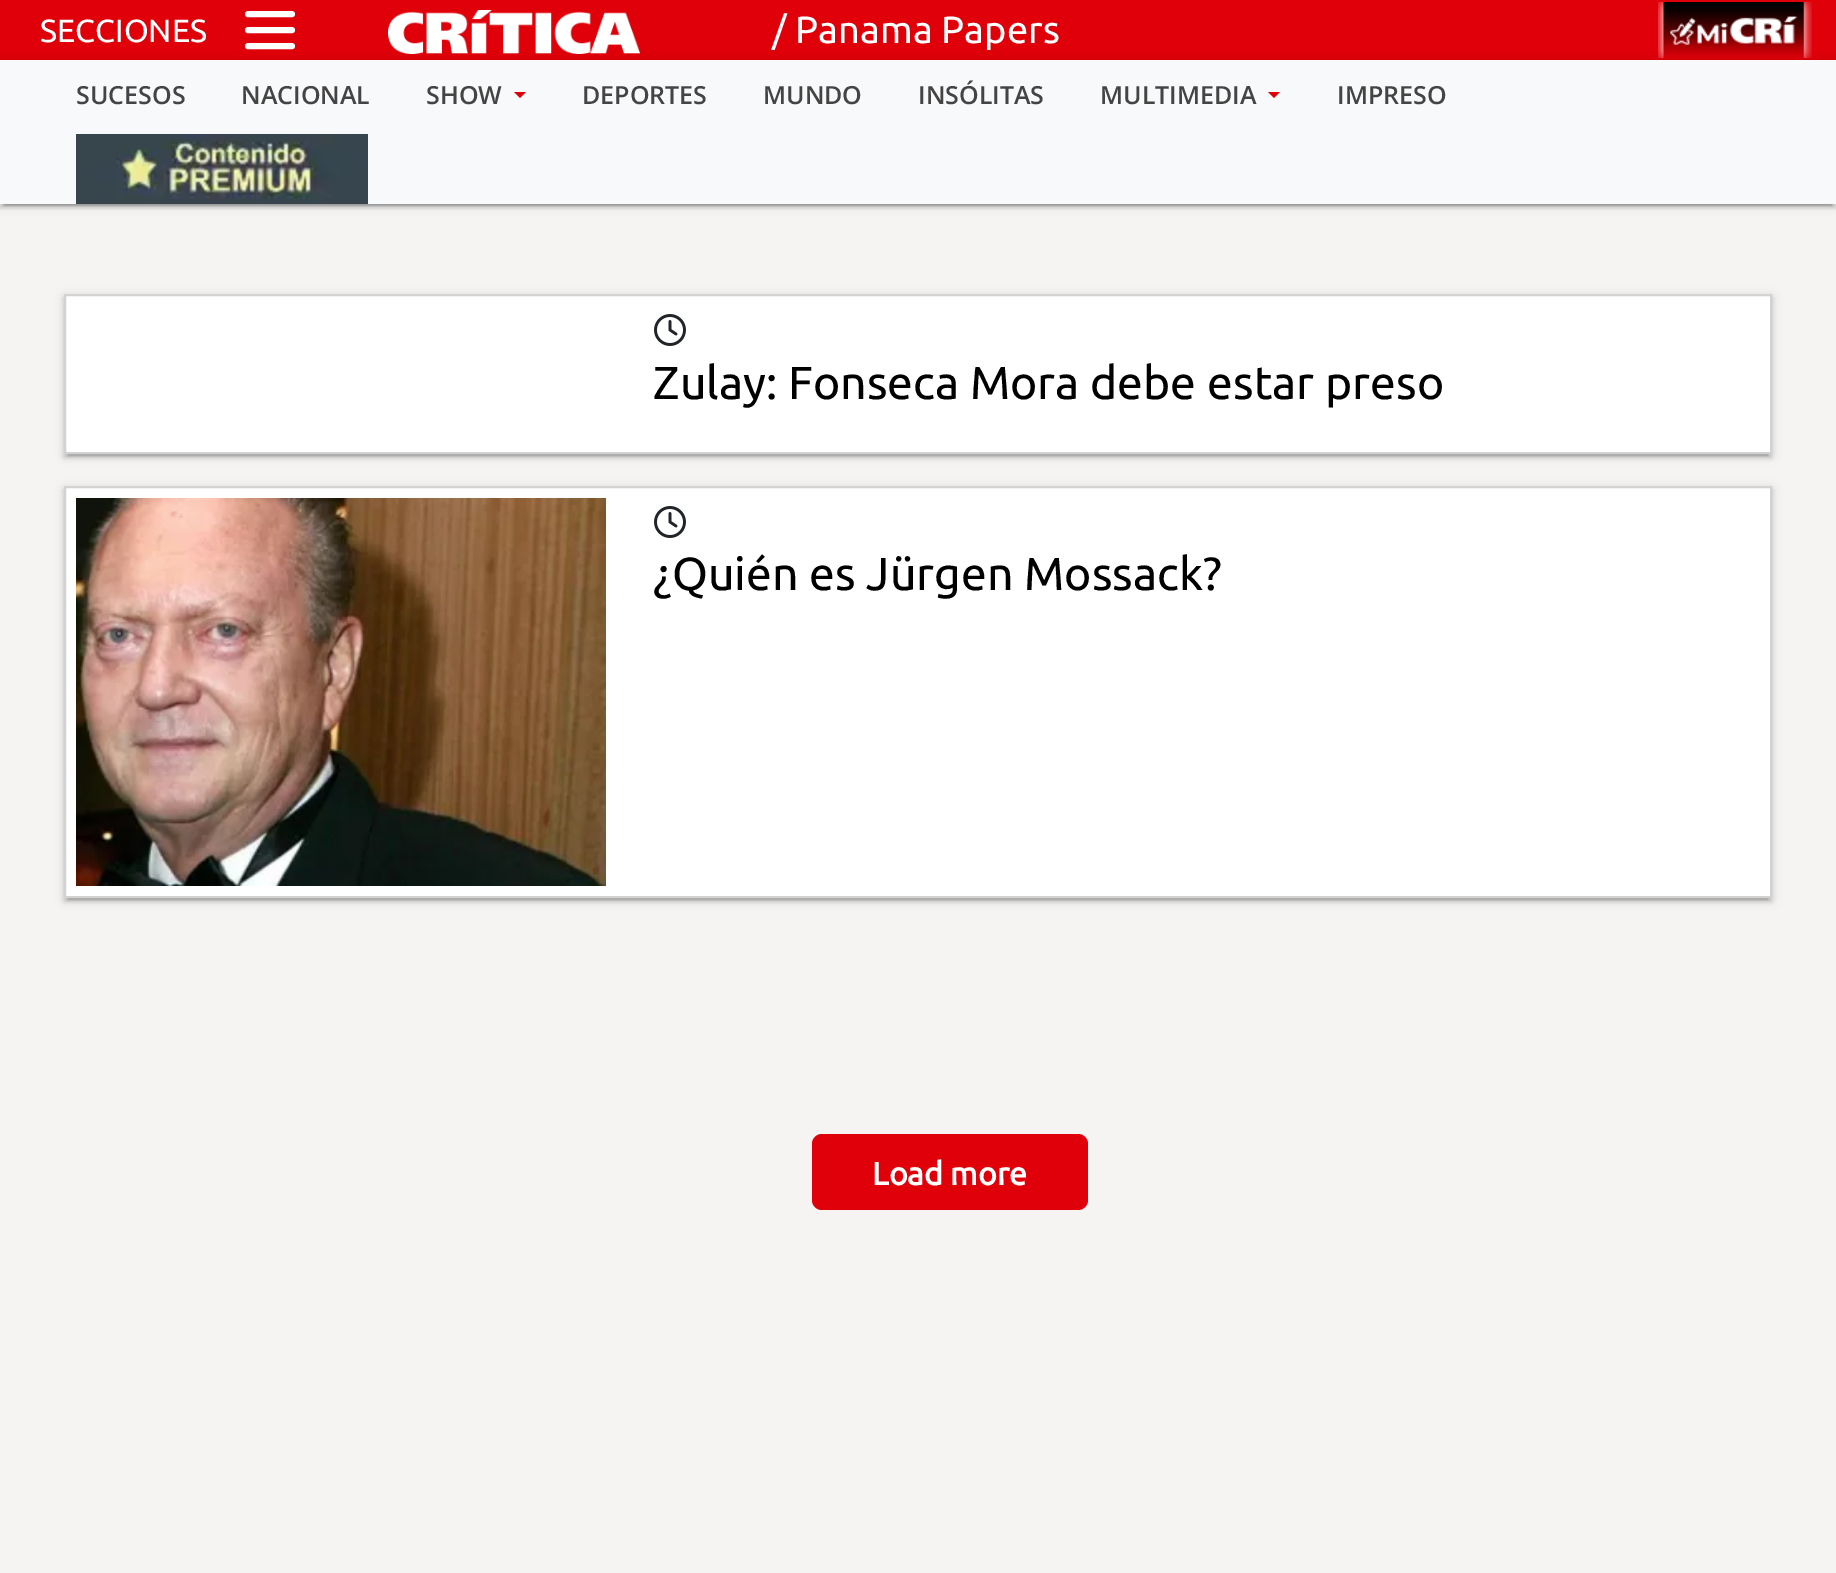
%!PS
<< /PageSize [1836 1573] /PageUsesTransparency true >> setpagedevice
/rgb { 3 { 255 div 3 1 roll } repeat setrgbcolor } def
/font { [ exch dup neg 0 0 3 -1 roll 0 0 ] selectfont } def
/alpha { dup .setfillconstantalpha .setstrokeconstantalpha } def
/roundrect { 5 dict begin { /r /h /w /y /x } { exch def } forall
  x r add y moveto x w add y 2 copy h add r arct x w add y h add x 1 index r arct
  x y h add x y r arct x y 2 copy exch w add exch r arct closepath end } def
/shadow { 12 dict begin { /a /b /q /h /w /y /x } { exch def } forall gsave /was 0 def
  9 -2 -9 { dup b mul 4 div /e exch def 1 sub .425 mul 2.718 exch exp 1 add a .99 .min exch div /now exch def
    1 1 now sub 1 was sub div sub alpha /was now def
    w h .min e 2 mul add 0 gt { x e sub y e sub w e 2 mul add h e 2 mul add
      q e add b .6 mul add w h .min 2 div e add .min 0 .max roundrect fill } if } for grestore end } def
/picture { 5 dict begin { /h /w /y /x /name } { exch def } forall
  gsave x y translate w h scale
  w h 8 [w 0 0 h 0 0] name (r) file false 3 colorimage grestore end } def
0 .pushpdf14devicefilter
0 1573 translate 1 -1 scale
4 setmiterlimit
245 244 243 rgb
0 0 1836 1573 rectfill
248 249 250 rgb
0 60 1836 144 rectfill
223 0 9 rgb
0 0 1836 60 rectfill
(img/1.rgb) 388 10 252 44 picture
(img/2.rgb) 1658 2 154 56 picture
gsave
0 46 moveto 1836 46 lineto 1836 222 lineto 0 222 lineto closepath 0 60 moveto 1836 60 lineto 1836 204 lineto 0 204 lineto closepath eoclip newpath
0 0 0 rgb
0 62 1836 144 0 5 0.12 shadow
grestore
255 255 255 rgb
6 setlinewidth
1 setlinecap
248 14 moveto 292 14 lineto 248 30 moveto 292 30 lineto 248 46 moveto 292 46 lineto stroke
gsave
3 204 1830 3 rectclip
0 0 0 rgb
4 70 1828 136 0 1 0.2 shadow
grestore
gsave
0 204 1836 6 rectclip
0 0 0 rgb
0 64 1836 144 0 2 0.14 shadow
grestore
223 0 9 rgb
514 92 moveto 526 92 lineto 520 98 lineto closepath fill
1268 92 moveto 1280 92 lineto 1274 98 lineto closepath fill
(img/3.rgb) 76 134 292 70 picture
0 0 0 rgb
68 304 1700 152 0 1 0.2 shadow
64 296 1708 160 0 5 0.12 shadow
64 298 1708 160 0 2 0.14 shadow
255 255 255 rgb
65 295 moveto 1771 295 lineto 1771 453 lineto 65 453 lineto closepath gsave fill grestore
210 210 210 rgb
2 setlinewidth
0 setlinecap
stroke
(img/4.rgb) 654 314 32 32 picture
0 0 0 rgb
68 496 1700 404 0 1 0.2 shadow
64 488 1708 412 0 5 0.12 shadow
64 490 1708 412 0 2 0.14 shadow
255 255 255 rgb
65 487 moveto 1771 487 lineto 1771 897 lineto 65 897 lineto closepath gsave fill grestore
210 210 210 rgb
stroke
(img/5.rgb) 76 498 530 388 picture
(img/4.rgb) 654 506 32 32 picture
223 0 9 rgb
812 1134 276 76 10 roundrect fill
/Ubuntu-Regular 32 font
255 255 255 rgb
40 42 moveto (SECCIONES) show
/Ubuntu-Regular 38 font
772 43 moveto (/ Panama Papers) show
/OpenSans-SemiBold 25 font
68 68 68 rgb
[
  [(SUCESOS) 76 104]
  [(NACIONAL) 241 104]
  [(SHOW) 426 104]
  [(DEPORTES) 582 104]
  [(MUNDO) 763 104]
  [(INSÓLITAS) 918 104]
  [(MULTIMEDIA) 1100 104]
  [(IMPRESO) 1337 104]
] { aload pop moveto show } forall
/Ubuntu-Regular 46.3 font
0 0 0 rgb
653 399 moveto (Zulay: Fonseca Mora debe estar preso) show
653 590 moveto (¿Quién es Jürgen Mossack?) show
/Ubuntu-Bold 32 font
255 255 255 rgb
872 1185 moveto (Load more) show
.poppdf14devicefilter showpage
